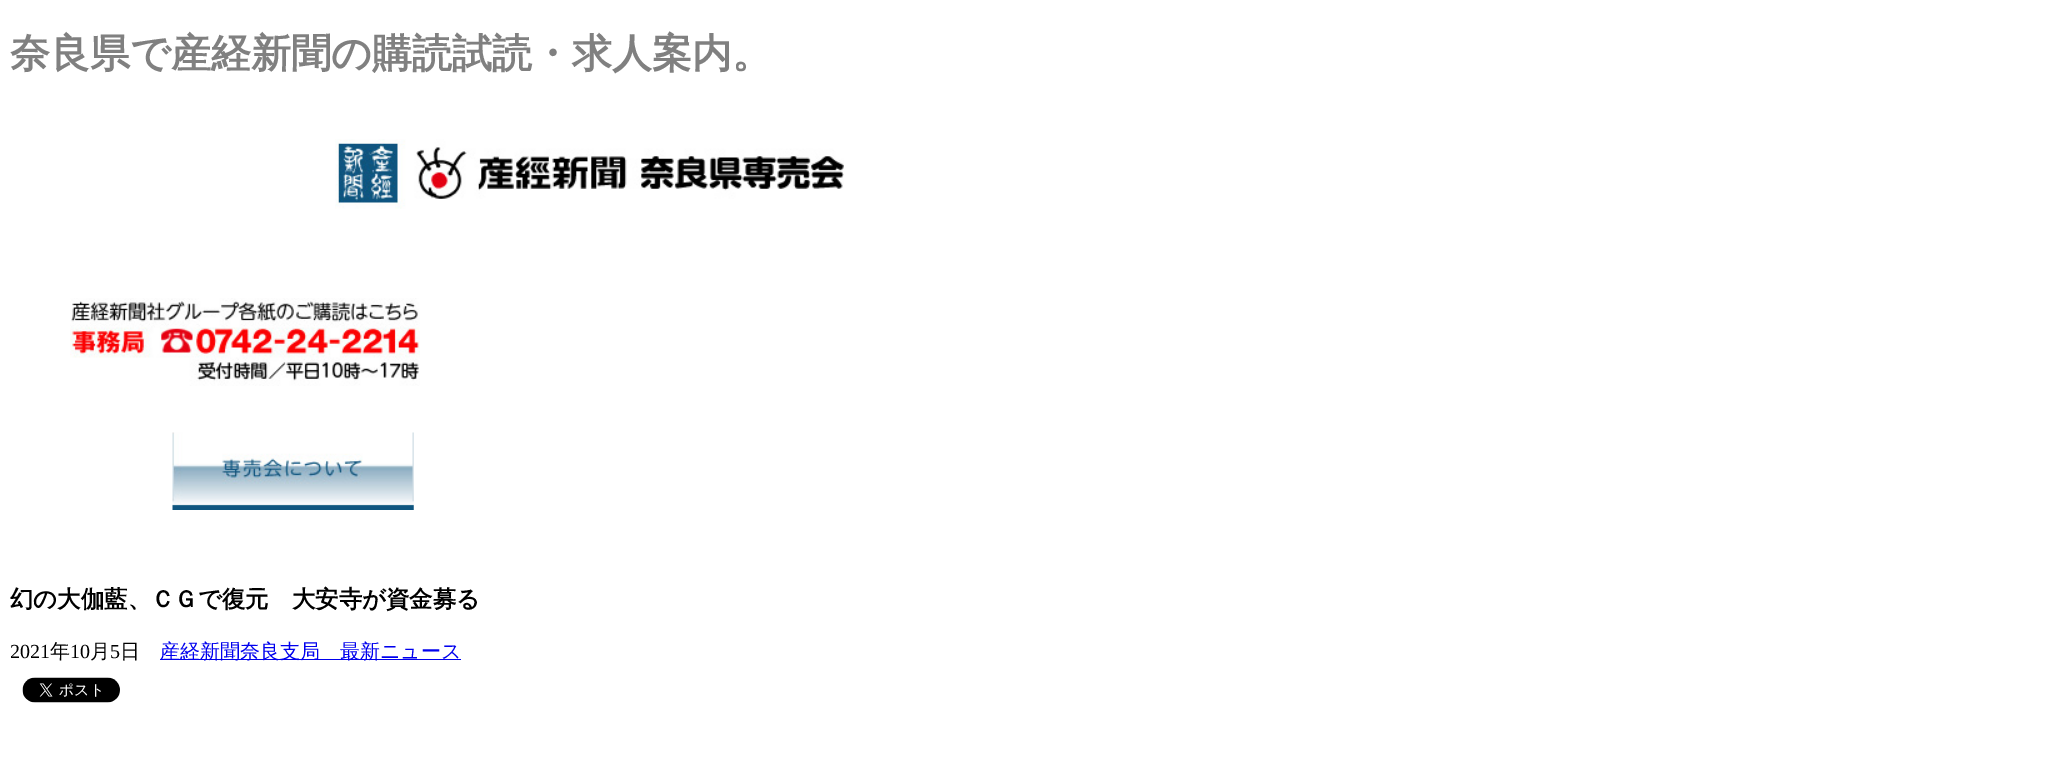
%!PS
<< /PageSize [2060 778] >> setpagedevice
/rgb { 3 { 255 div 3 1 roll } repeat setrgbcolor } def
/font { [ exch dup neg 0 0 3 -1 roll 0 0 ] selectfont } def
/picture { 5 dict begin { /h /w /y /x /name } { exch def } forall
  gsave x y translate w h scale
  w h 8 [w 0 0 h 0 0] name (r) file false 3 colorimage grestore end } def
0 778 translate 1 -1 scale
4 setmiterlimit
255 255 255 rgb
0 0 2060 778 rectfill
(img/1.rgb) 335 139 509 70 picture
(img/2.rgb) 70 298 350 88 picture
(img/3.rgb) 172 432 242 78 picture
0 0 238 rgb
160 659 301 1 rectfill
(img/4.rgb) 22 677 98 26 picture
/WenQuanYiZenHei-Bold 40 font
128 128 128 rgb
10 67 moveto (奈良県で産経新聞の購読試読・求人案内。) show
/WenQuanYiZenHei-Bold 23.4 font
0 0 0 rgb
10 607 moveto (幻の大伽藍、ＣＧで復元　大安寺が資金募る) show
/LiberationSerif-Regular 20 font
10 658 moveto (2021) show
/WenQuanYiZenHei-Medium 20 font
50 658 moveto (年) show
/LiberationSerif-Regular 20 font
70 658 moveto (10) show
/WenQuanYiZenHei-Medium 20 font
90 658 moveto (月) show
/LiberationSerif-Regular 20 font
110 658 moveto (5) show
/WenQuanYiZenHei-Medium 20 font
120 658 moveto (日) show
0 0 238 rgb
160 658 moveto (産経新聞奈良支局　最新ニュース) show
showpage
